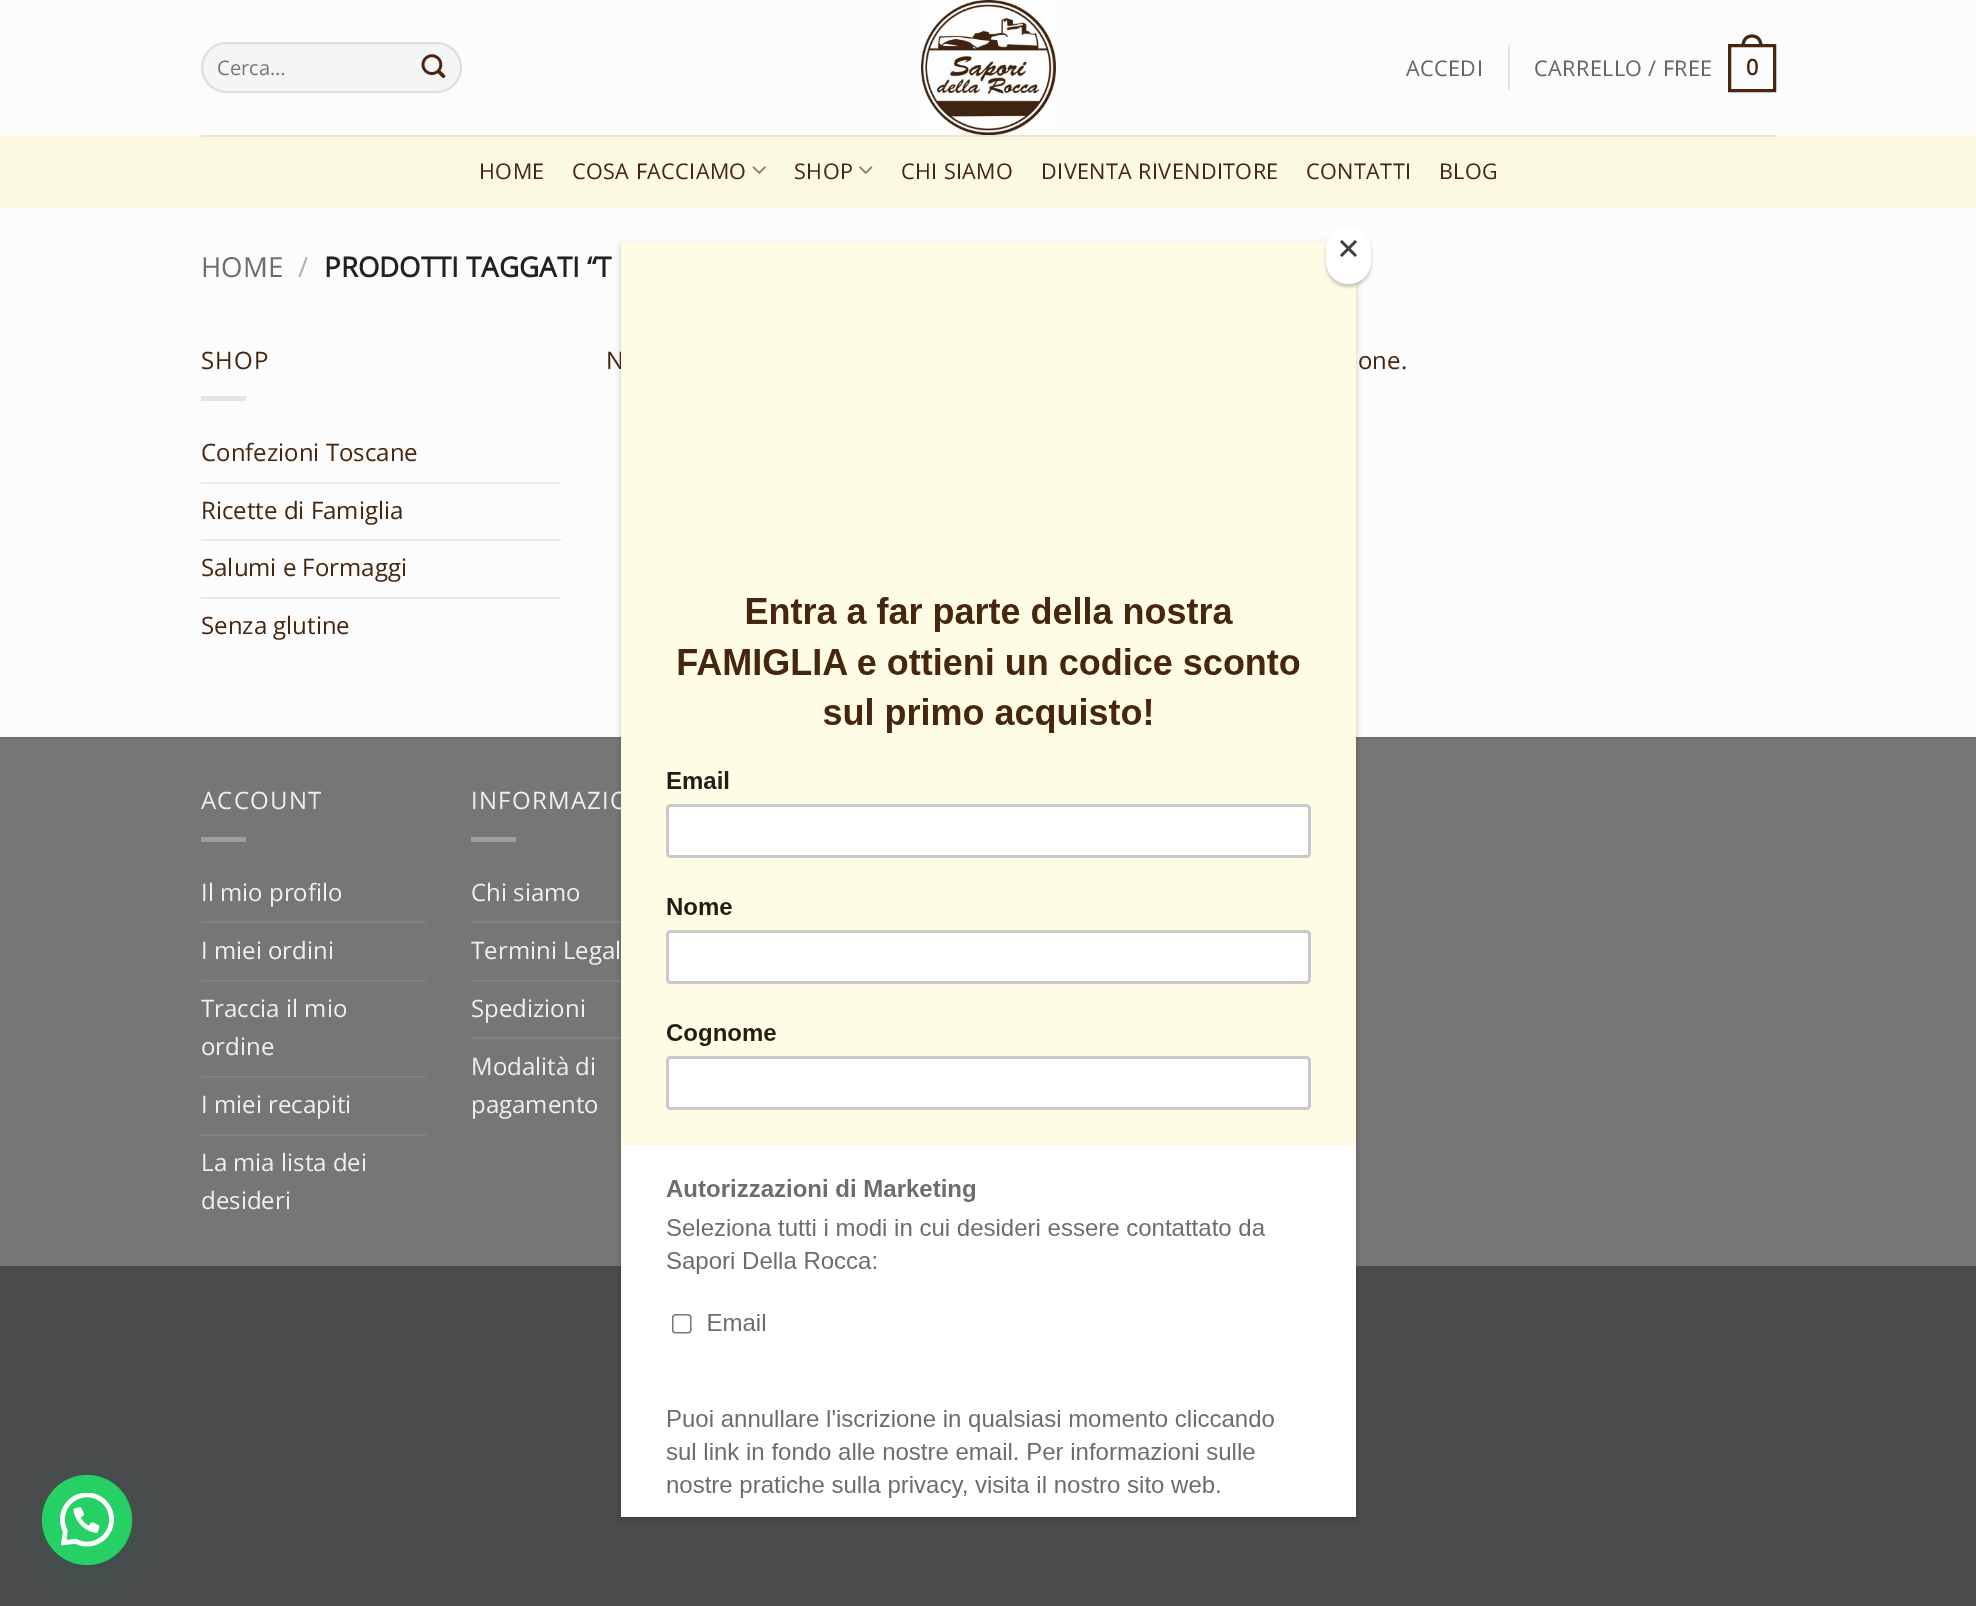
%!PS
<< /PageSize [1976 1606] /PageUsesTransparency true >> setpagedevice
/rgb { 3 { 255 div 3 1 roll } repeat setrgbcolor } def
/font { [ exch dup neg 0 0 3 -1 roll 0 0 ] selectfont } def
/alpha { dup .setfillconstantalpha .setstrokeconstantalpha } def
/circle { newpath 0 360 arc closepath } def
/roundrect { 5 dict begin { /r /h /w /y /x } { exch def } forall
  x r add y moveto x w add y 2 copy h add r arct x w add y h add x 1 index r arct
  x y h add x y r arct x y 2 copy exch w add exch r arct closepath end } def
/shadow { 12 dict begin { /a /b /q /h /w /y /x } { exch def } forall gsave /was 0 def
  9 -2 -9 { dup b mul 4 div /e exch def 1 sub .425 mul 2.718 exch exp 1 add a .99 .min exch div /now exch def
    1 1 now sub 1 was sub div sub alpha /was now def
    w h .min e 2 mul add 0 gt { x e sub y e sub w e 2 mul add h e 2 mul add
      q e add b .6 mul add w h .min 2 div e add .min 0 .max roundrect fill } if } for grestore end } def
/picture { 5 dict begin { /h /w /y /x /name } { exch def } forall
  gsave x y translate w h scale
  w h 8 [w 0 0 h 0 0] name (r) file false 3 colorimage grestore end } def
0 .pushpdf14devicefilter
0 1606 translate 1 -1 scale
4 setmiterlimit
76 76 76 rgb
0 0 1976 1606 rectfill
252 252 252 rgb
0 0 1976 737 rectfill
245 245 245 rgb
201 42 261 51 25.5 roundrect fill
0.09 alpha
0 0 0 rgb
2 setlinewidth
202 43 259 49 24.5 roundrect stroke
1 alpha
(img/1.rgb) 421 54 25 24 picture
(img/2.rgb) 921 0 135 135 picture
228 228 228 rgb
1508 45 2 45 rectfill
70 38 16 rgb
3 setlinewidth
1729.5 45.5 45 45 rectstroke
1752 34.5 moveto 1759 34.5 1762.5 40 1762.5 46.5 curveto 1741.5 46.5 lineto 1741.5 40 1745 34.5 1752 34.5 curveto closepath 1752 37.5 moveto 1757.5 37.5 1759.5 42 1759.5 46.5 curveto 1744.5 46.5 lineto 1744.5 42 1746.5 37.5 1752 37.5 curveto closepath eofill
252 249 227 rgb
0 135 1976 72 rectfill
235 229 206 rgb
201 135 1575 2 rectfill
(img/3.rgb) 752 166 14 8 picture
(img/4.rgb) 859 166 14 8 picture
[
  [201 396 45 5 228 228 228]
  [201 482 360 2 234 234 234]
  [201 539 360 2 234 234 234]
  [201 597 360 2 234 234 234]
  [0 739 1976 527 118 118 118]
  [0 737 1976 2 112 112 112]
  [201 837 45 5 158 158 158]
  [201 921 225 2 129 129 129]
  [201 980 225 2 129 129 129]
  [201 1076 225 2 129 129 129]
  [201 1134 225 2 129 129 129]
  [471 837 45 5 158 158 158]
  [471 921 150 2 129 129 129]
  [471 980 150 2 129 129 129]
  [471 1037 150 2 129 129 129]
] { aload pop rgb rectfill } forall
7 93 83 rgb
44 1484 90 90 45 18 0.24 shadow
37 209 101 rgb
87 1520 45 circle fill
(img/5.rgb) 60 1493 54 54 picture
0 0 0 rgb
621 245 735 1275 0 3 0.2 shadow
/OpenSans-Regular 20 font
116 116 116 rgb
217 75 moveto (Cerca…) show
/OpenSans-Regular 21.6 font
100 100 100 rgb
1406 76 moveto 0.4 0 (ACCEDI) ashow
1534 76 moveto 0.4 0 (CARRELLO / FREE) ashow
/OpenSans-Bold 21.6 font
70 38 16 rgb
1746 75 moveto 0.4 0 (0) ashow
/OpenSans-Regular 21.6 font
479 179 moveto 0.4 0 (HOME) ashow
572 179 moveto 0.4 0 (COSA FACCIAMO) ashow
794 179 moveto 0.4 0 (SHOP) ashow
901 179 moveto 0.4 0 (CHI SIAMO) ashow
1041 179 moveto 0.4 0 (DIVENTA RIVENDITORE) ashow
1306 179 moveto 0.4 0 (CONTATTI) ashow
1439 179 moveto 0.4 0 (BLOG) ashow
/OpenSans-Regular 27.6 font
109 109 109 rgb
201 277 moveto (HOME) show
176 176 176 rgb
298 277 moveto (/) show
/OpenSans-Bold 27.6 font
34 34 34 rgb
324 277 moveto (PRODOTTI TAGGATI “T) show
/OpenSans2-Regular 24 font
70 38 16 rgb
201 369 moveto 1.25 0 (SHOP) ashow
/OpenSans-Regular 24 font
[
  [(Confezioni Toscane) 201 461]
  [(Ricette di Famiglia) 201 519]
  [(Salumi e Formaggi) 201 576]
  [(Senza glutine) 201 634]
  [(N) 606 369]
  [(one.) 1358 369]
] { aload pop moveto show } forall
/OpenSans2-Regular 24 font
239 239 239 rgb
201 809 moveto 1.25 0 (ACCOUNT) ashow
/OpenSans-Regular 24 font
[
  [(Il mio profilo) 201 901]
  [(I miei ordini) 201 959]
  [(Traccia il mio) 201 1017]
  [(ordine) 201 1055]
  [(I miei recapiti) 201 1113]
  [(La mia lista dei) 201 1171]
  [(desideri) 201 1209]
] { aload pop moveto show } forall
/OpenSans2-Regular 24 font
471 809 moveto 1.25 0 (INFORMAZIO) ashow
/OpenSans-Regular 24 font
[
  [(Chi siamo) 471 901]
  [(Termini Legal) 471 959]
  [(Spedizioni) 471 1017]
  [(Modalità di) 471 1075]
  [(pagamento) 471 1113]
] { aload pop moveto show } forall
(img/6.rgb) 621 242 735 1275 picture
0 0 0 rgb
1326 230 45 57 22.5 1.5 0.2 shadow
255 255 255 rgb
1326 227 45 57 22.5 roundrect fill
65 65 65 rgb
1355 240 moveto 1357 242 lineto 1342 257 lineto 1340 255 lineto closepath fill
1340 242 moveto 1342 240 lineto 1357 255 lineto 1355 257 lineto closepath fill
.poppdf14devicefilter showpage
